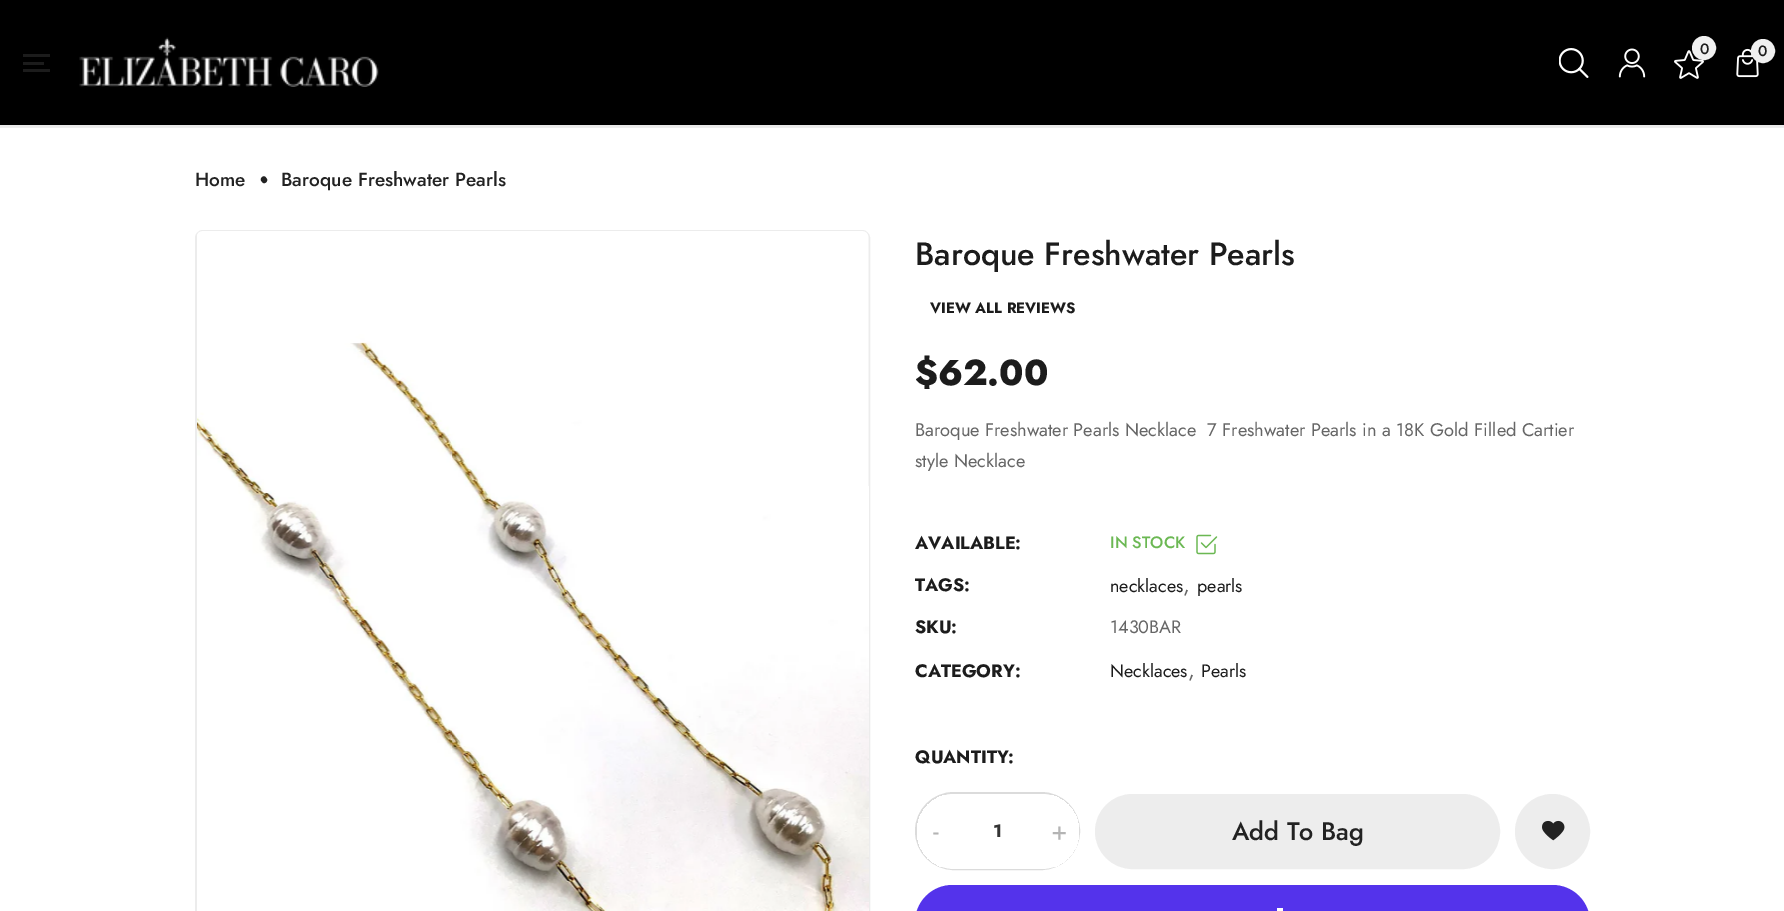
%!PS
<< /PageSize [1784 911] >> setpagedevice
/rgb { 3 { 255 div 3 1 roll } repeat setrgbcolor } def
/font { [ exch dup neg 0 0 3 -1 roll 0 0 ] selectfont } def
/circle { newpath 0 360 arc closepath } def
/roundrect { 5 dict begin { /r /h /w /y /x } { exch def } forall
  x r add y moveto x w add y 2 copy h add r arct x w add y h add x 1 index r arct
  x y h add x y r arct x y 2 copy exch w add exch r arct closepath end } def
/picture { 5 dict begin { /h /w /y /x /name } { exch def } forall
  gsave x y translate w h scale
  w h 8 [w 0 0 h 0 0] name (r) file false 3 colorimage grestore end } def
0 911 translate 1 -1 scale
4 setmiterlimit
255 255 255 rgb
0 0 1784 911 rectfill
[
  [0 125 1784 2 234 234 234]
  [0 0 1784 125 0 0 0]
  [23 62 21 3 28 28 28]
  [23 54 27 3 28 28 28]
  [23 69 27 3 28 28 28]
] { aload pop rgb rectfill } forall
(img/1.rgb) 79 37 300 50 picture
(img/2.rgb) 1559 48 30 30 picture
(img/3.rgb) 1618 48 28 30 picture
(img/4.rgb) 1674 50 30 29 picture
240 240 240 rgb
1704 48 11 circle gsave fill grestore
2 setlinewidth
stroke
(img/5.rgb) 1736 48 23 30 picture
1763 51 11 circle gsave fill grestore
stroke
237 237 237 rgb
0 127 1784 1 rectfill
34 34 34 rgb
265.5 177 moveto 267 179 lineto 268 181.5 264.5 184.5 262.5 182.5 curveto 261 180.5 lineto 260 178 263.5 175 265.5 177 curveto closepath fill
236 236 236 rgb
196 231 673 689 7 roundrect stroke
(img/6.rgb) 197 231 672 680 picture
(img/7.rgb) 1196 534 22 21 picture
219 219 219 rgb
916 793 163 76 38 roundrect stroke
255 255 255 rgb
917 794 162 75 37.5 roundrect fill
gsave
917 794 162 75 37.5 roundrect clip newpath
917 795 39 72 rectfill
1040 795 39 72 rectfill
grestore
237 237 237 rgb
1096 795 403 73 36.5 roundrect gsave fill grestore
stroke
1552.5 831.5 36.5 circle gsave fill grestore
stroke
(img/8.rgb) 1542 820 23 21 picture
84 51 235 rgb
915 885 675 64 37.5 roundrect fill
255 255 255 rgb
1277 908 6 3 rectfill
/Jost-Medium 15 font
28 28 28 rgb
1700 54 moveto (0) show
1758 56 moveto (0) show
/Jost-Medium 19.1 font
34 34 34 rgb
195 186 moveto (Home) show
281 186 moveto (Baroque Freshwater Pearls) show
/Jost-Medium 32.25 font
28 28 28 rgb
915 265 moveto (Baroque Freshwater Pearls) show
/Jost-Bold 15 font
930 313 moveto (VIEW ALL REVIEWS) show
/Jost-ExtraBold 36 font
915 385 moveto ($62.00) show
/Jost-Regular 18.25 font
102 102 102 rgb
915 436 moveto (Baroque Freshwater Pearls Necklace  7 Freshwater Pearls in a 18K Gold Filled Cartier) show
915 467 moveto (style Necklace) show
/Jost-Bold 18 font
28 28 28 rgb
915 549 moveto (AVAILABLE:) show
/Jost-Medium 16.5 font
107 184 83 rgb
1110 548 moveto (IN STOCK) show
/Jost-Bold 18 font
28 28 28 rgb
915 591 moveto (TAGS:) show
/Jost-Regular 18 font
1110 592 moveto (necklaces) show
/Jost-Regular 22 font
102 102 102 rgb
1183 592 moveto (,) show
/Jost-Regular 18 font
28 28 28 rgb
1197 592 moveto (pearls) show
/Jost-Bold 18 font
915 633 moveto (SKU:) show
/Jost-Regular 18 font
102 102 102 rgb
1110 633 moveto (1430BAR) show
/Jost-Bold 18 font
28 28 28 rgb
915 677 moveto (CATEGORY:) show
/Jost-Regular 18 font
1110 677 moveto (Necklaces) show
/Jost-Regular 22 font
102 102 102 rgb
1188 677 moveto (,) show
/Jost-Regular 18 font
28 28 28 rgb
1201 677 moveto (Pearls) show
/Jost-Bold 18 font
915 763 moveto (QUANTITY:) show
/Jost-Regular 27 font
180 180 180 rgb
933 840 moveto (-) show
/Jost-Bold 18 font
52 52 52 rgb
993 837 moveto (1) show
/Jost-Regular 27 font
180 180 180 rgb
1051 840 moveto (+) show
/Jost-Medium 25.25 font
34 34 34 rgb
1232 840 moveto (Add To Bag) show
showpage
